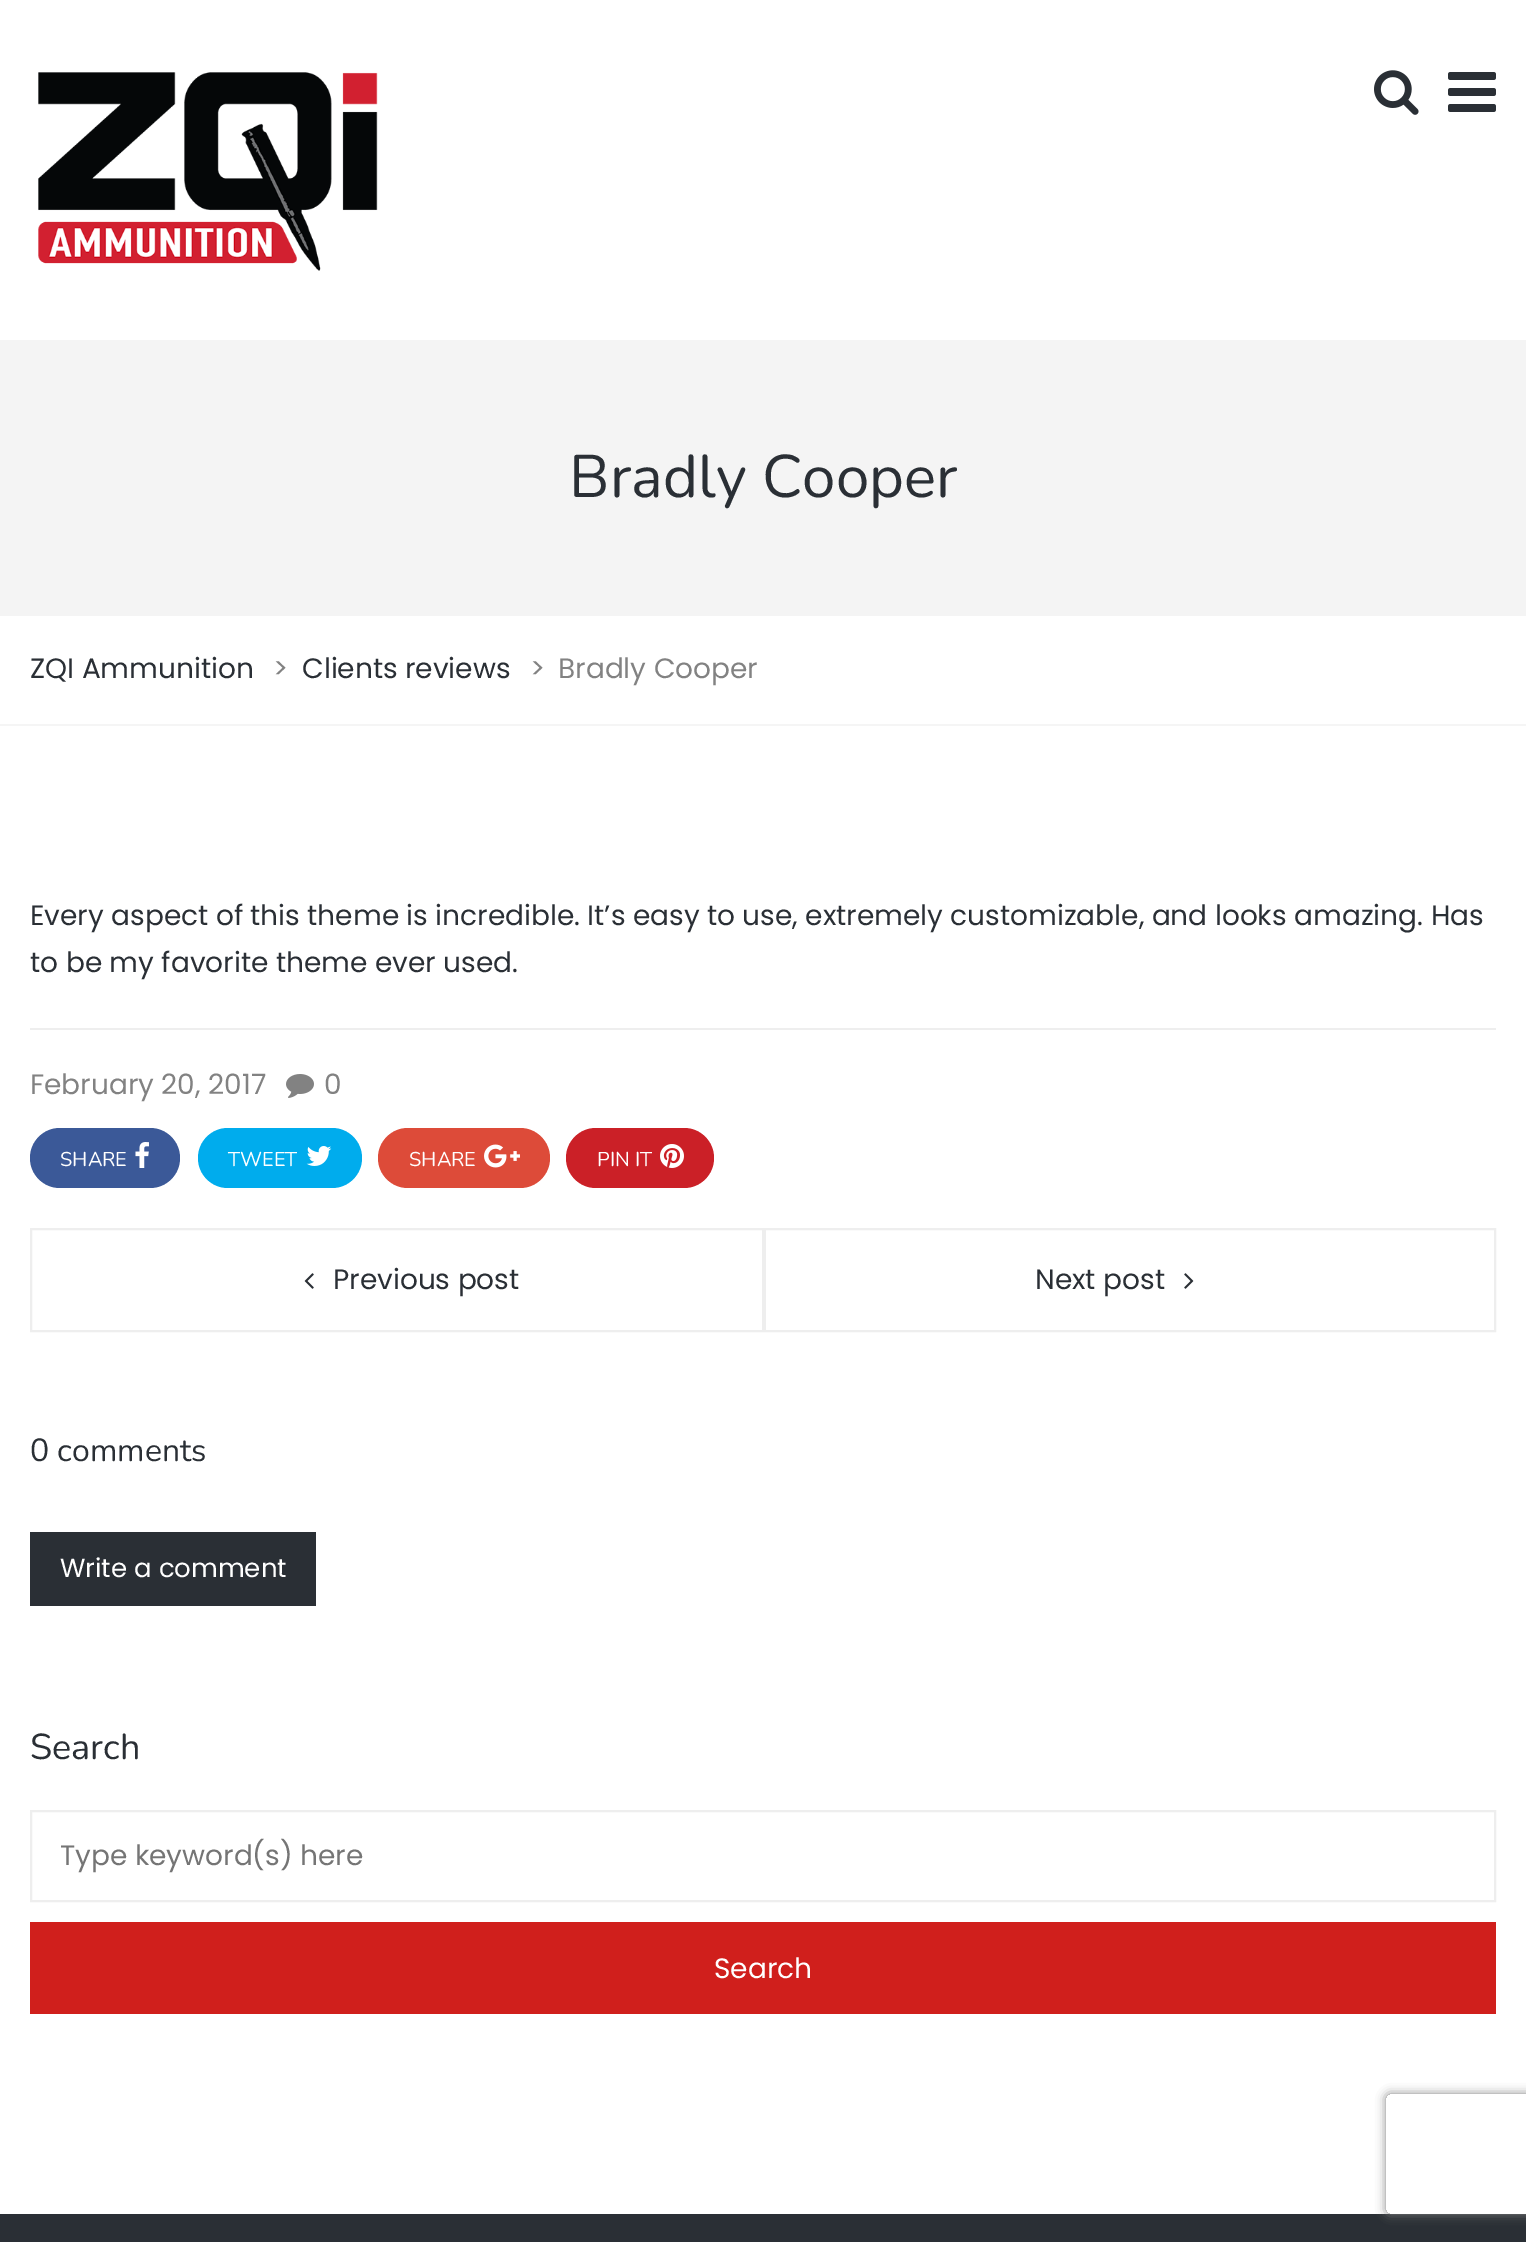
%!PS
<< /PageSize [1526 2242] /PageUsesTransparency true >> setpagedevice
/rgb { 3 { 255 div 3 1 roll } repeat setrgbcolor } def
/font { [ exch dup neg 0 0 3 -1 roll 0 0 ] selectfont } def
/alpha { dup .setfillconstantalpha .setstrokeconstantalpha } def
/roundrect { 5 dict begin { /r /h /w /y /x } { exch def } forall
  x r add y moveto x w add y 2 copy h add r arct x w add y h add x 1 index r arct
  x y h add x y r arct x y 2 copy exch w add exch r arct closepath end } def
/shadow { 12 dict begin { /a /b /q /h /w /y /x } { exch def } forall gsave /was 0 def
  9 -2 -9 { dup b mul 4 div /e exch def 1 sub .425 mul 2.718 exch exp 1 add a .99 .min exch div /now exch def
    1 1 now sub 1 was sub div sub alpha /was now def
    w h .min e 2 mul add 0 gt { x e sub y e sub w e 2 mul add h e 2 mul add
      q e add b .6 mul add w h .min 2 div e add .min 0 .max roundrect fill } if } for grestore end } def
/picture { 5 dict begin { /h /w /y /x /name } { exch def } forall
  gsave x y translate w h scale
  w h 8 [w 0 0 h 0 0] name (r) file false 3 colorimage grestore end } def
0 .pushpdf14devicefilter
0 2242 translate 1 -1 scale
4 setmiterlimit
255 255 255 rgb
0 0 1526 2242 rectfill
(img/1.rgb) 38 72 340 199 picture
(img/2.rgb) 1374 70 45 45 picture
(img/3.rgb) 1448 72 48 40 picture
[
  [0 340 1526 276 244 244 244]
  [0 724 1526 2 245 245 245]
  [30 1028 1466 2 238 238 238]
] { aload pop rgb rectfill } forall
(img/4.rgb) 286 1074 28 24 picture
59 89 152 rgb
30 1128 150 60 30 roundrect fill
(img/5.rgb) 135 1142 14 26 picture
0 172 237 rgb
198 1128 164 60 30 roundrect fill
(img/6.rgb) 306 1146 26 20 picture
221 75 57 rgb
378 1128 172 60 30 roundrect fill
(img/7.rgb) 484 1144 36 24 picture
203 32 39 rgb
566 1128 148 60 30 roundrect fill
(img/8.rgb) 660 1144 24 24 picture
238 238 238 rgb
2 setlinewidth
31 1229 1464 102 rectstroke
762 1230 4 100 rectfill
(img/9.rgb) 304 1273 10 16 picture
(img/10.rgb) 1184 1273 10 16 picture
42 47 53 rgb
30 1532 286 74 rectfill
238 238 238 rgb
31 1811 1464 90 rectstroke
208 31 28 rgb
30 1922 1466 92 rectfill
42 47 53 rgb
0 2214 1526 28 rectfill
gsave
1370 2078 moveto 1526 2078 lineto 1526 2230 lineto 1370 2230 lineto closepath 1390 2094 moveto 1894 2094 lineto 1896 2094 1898 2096 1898 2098 curveto 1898 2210 lineto 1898 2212 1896 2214 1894 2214 curveto 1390 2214 lineto 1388 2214 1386 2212 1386 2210 curveto 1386 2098 lineto 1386 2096 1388 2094 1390 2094 curveto closepath eoclip newpath
128 128 128 rgb
1386 2094 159 120 4 5 1 shadow
grestore
/Nunito-Regular 60 font
569 497 moveto (Bradly Cooper) show
/Poppins-Regular 28 font
30 678 moveto (ZQI Ammunition) show
130 130 130 rgb
273 678 moveto (>) show
42 47 53 rgb
302 678 moveto (Clients reviews) show
130 130 130 rgb
530 678 moveto (>) show
558 678 moveto (Bradly Cooper) show
42 47 53 rgb
30 925 moveto (Every aspect of this theme is incredible. It’s easy to use, extremely customizable, and looks amazing. Has) show
30 972 moveto (to be my favorite theme ever used.) show
130 130 130 rgb
30 1094 moveto (February 20, 2017) show
324 1094 moveto (0) show
/Nunito-Regular 20 font
255 255 255 rgb
[
  [(SHARE) 60 1166]
  [(TWEET) 228 1166]
  [(SHARE) 409 1166]
  [(PIN IT) 597 1166]
] { aload pop moveto show } forall
/Poppins-Regular 28 font
42 47 53 rgb
333 1289 moveto (Previous post) show
1035 1289 moveto (Next post) show
/Nunito-Regular 32 font
30 1461 moveto (0 comments) show
/Poppins-Regular 26 font
255 255 255 rgb
60 1577 moveto (Write a comment) show
/Nunito-Regular 36 font
42 47 53 rgb
30 1759 moveto (Search) show
/Poppins-Regular 28 font
117 117 117 rgb
60 1865 moveto (Type keyword\(s\) here) show
255 255 255 rgb
714 1978 moveto (Search) show
.poppdf14devicefilter showpage
